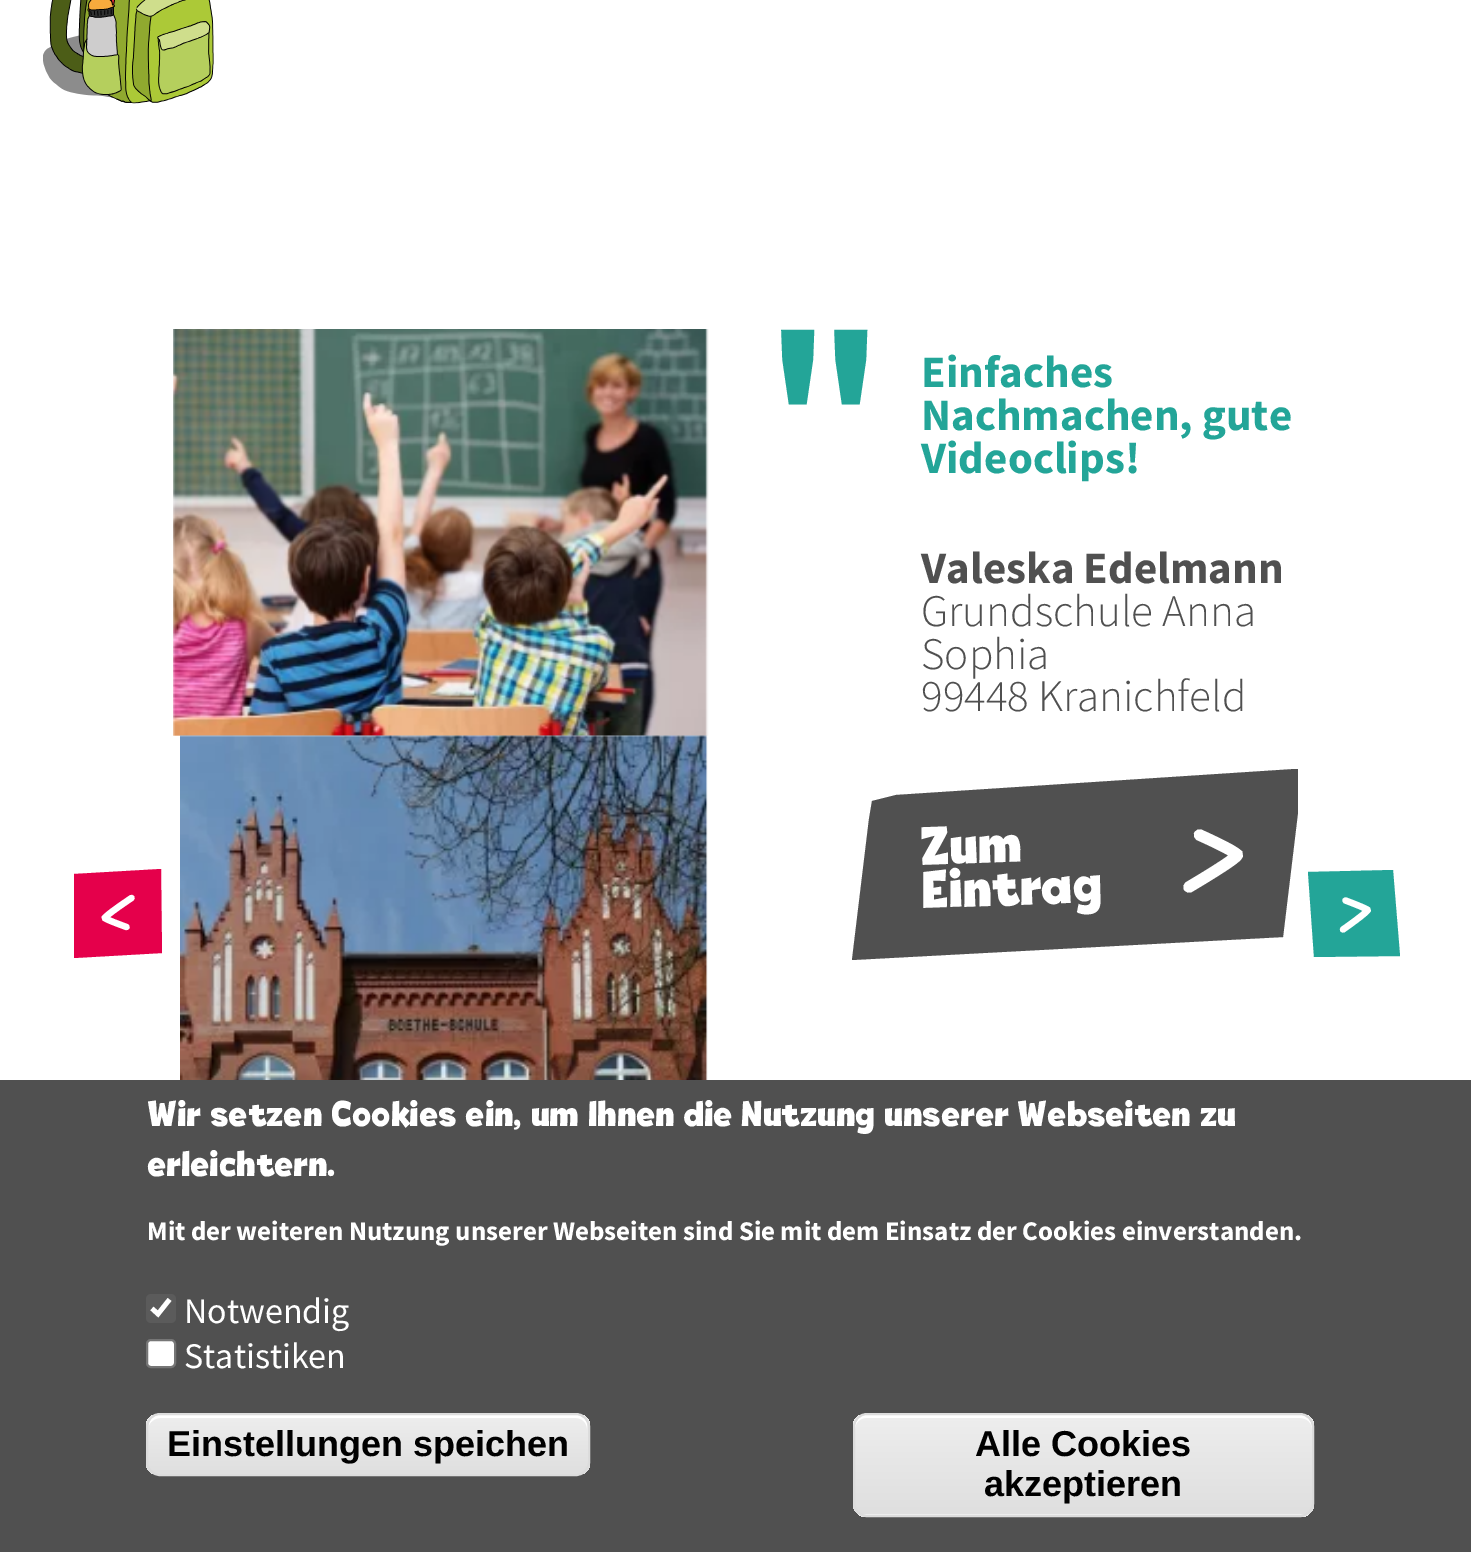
%!PS
<< /PageSize [1471 1552] >> setpagedevice
/rgb { 3 { 255 div 3 1 roll } repeat setrgbcolor } def
/font { [ exch dup neg 0 0 3 -1 roll 0 0 ] selectfont } def
/roundrect { 5 dict begin { /r /h /w /y /x } { exch def } forall
  x r add y moveto x w add y 2 copy h add r arct x w add y h add x 1 index r arct
  x y h add x y r arct x y 2 copy exch w add exch r arct closepath end } def
/picture { 5 dict begin { /h /w /y /x /name } { exch def } forall
  gsave x y translate w h scale
  w h 8 [w 0 0 h 0 0] name (r) file false 3 colorimage grestore end } def
0 1552 translate 1 -1 scale
4 setmiterlimit
255 255 255 rgb
0 0 1471 1552 rectfill
(img/1.rgb) 43 0 171 104 picture
(img/2.rgb) 173 329 536 407 picture
(img/3.rgb) 180 735 528 345 picture
gsave
173 329 1125 1082 rectclip
80 80 80 rgb
869 819 moveto 852 960 lineto 1283 937 lineto 1302 779 lineto 1302 769 lineto 1295 769 lineto 896 795 lineto 872 801 lineto closepath fill
grestore
gsave
1182 827.5 moveto 1243.5 830 lineto 1241.5 897.5 lineto 1179.5 895 lineto closepath clip newpath
11.4 setlinewidth
1 setlinecap
1199.5 835 moveto 1199.5 835 1236.5 851.5 1237 855 curveto 1237.5 858.5 1189 887 1189 887 curveto stroke
grestore
229 0 75 rgb
162 953 moveto 74 958 lineto 74 874 lineto 161 869 lineto closepath fill
255 255 255 rgb
6.3 setlinewidth
1 setlinecap
126.5 927 moveto 126.5 927 105.5 919.5 105 918 curveto 104.5 916 131.5 898 131.5 898 curveto stroke
35 165 152 rgb
1308 872 moveto 1393 870 lineto 1400 956 lineto 1314 957 lineto closepath fill
gsave
1335 895.5 moveto 1369.5 895 lineto 1372.5 932.5 lineto 1338 933 lineto closepath clip newpath
255 255 255 rgb
1345.5 900.5 moveto 1345.5 900.5 1367 908.5 1367.5 910 curveto 1368 912 1343 929.5 1343 929.5 curveto stroke
grestore
80 80 80 rgb
0 1080 1471 472 rectfill
91 91 91 rgb
146 1294 30 29 5 roundrect fill
255 255 255 rgb
4.7 setlinewidth
0 setlinecap
152 1308.5 moveto 158 1314 lineto 169.5 1299.5 lineto stroke
147 1340 28 27 4 roundrect gsave fill grestore
118 118 118 rgb
2 setlinewidth
stroke
gsave
146 1413 444 63 14 roundrect clip newpath
gsave 146 1415 moveto 590 1415 lineto 590 1474 lineto 146 1474 lineto closepath clip newpath
<< /ShadingType 2 /ColorSpace /DeviceRGB /Coords [368 1415 368 1474] /Extend [true true] /Function << /FunctionType 3 /Domain [0 1] /Functions [<< /FunctionType 2 /Domain [0 1] /C0 [0.929 0.929 0.929] /C1 [0.929 0.929 0.929] /N 1 >> << /FunctionType 2 /Domain [0 1] /C0 [0.929 0.929 0.929] /C1 [0.875 0.875 0.875] /N 1 >>] /Bounds [0.05] /Encode [0 1 0 1] >> >> shfill grestore
grestore
255 255 255 rgb
160 1418 moveto 576 1418 lineto 582 1418 587 1423 587 1429 curveto 587 1426 lineto 587 1420 582 1415 576 1415 curveto 160 1415 lineto 154 1415 150 1419 149 1425 curveto 151 1421 156 1418 160 1418 curveto closepath fill
220 220 220 rgb
147 1414 442 61 13 roundrect stroke
gsave
853 1413 461 104 14 roundrect clip newpath
gsave 853 1415 moveto 1314 1415 lineto 1314 1514 lineto 853 1514 lineto closepath clip newpath
<< /ShadingType 2 /ColorSpace /DeviceRGB /Coords [1083 1415 1083 1514] /Extend [true true] /Function << /FunctionType 3 /Domain [0 1] /Functions [<< /FunctionType 2 /Domain [0 1] /C0 [0.929 0.929 0.929] /C1 [0.929 0.929 0.929] /N 1 >> << /FunctionType 2 /Domain [0 1] /C0 [0.929 0.929 0.929] /C1 [0.875 0.875 0.875] /N 1 >>] /Bounds [0.05] /Encode [0 1 0 1] >> >> shfill grestore
gsave 853 1514 moveto 1314 1514 lineto 1314 1517 lineto 853 1517 lineto closepath clip newpath
<< /ShadingType 2 /ColorSpace /DeviceRGB /Coords [1083 1514 1083 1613] /Extend [true true] /Function << /FunctionType 3 /Domain [0 1] /Functions [<< /FunctionType 2 /Domain [0 1] /C0 [0.929 0.929 0.929] /C1 [0.929 0.929 0.929] /N 1 >> << /FunctionType 2 /Domain [0 1] /C0 [0.929 0.929 0.929] /C1 [0.875 0.875 0.875] /N 1 >>] /Bounds [0.05] /Encode [0 1 0 1] >> >> shfill grestore
grestore
255 255 255 rgb
866 1418 moveto 1300 1418 lineto 1307 1418 1312 1423 1312 1429 curveto 1312 1423 1310 1417 1303 1415 curveto 864 1415 lineto 857 1417 855 1423 855 1429 curveto 855 1423 860 1418 866 1418 curveto closepath fill
220 220 220 rgb
854 1414 459 102 13 roundrect stroke
/SourceSansPro-Bold 225 font
35 165 152 rgb
764 484 moveto (") show
/SourceSansPro-Bold 45 font
[
  [(Einfaches) 921 387]
  [(Nachmachen, gute) 921 430]
  [(Videoclips!) 921 473]
] { aload pop moveto show } forall
80 80 80 rgb
921 583 moveto (Valeska Edelmann) show
/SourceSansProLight-Light 45 font
[
  [(Grundschule Anna) 921 626]
  [(Sophia) 921 669]
  [(99448 Kranichfeld) 921 711]
] { aload pop moveto show } forall
/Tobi-Black 54 font
255 255 255 rgb
gsave 921 865 translate -2 rotate 0 0 moveto (Zum) show grestore
gsave 922 908 translate -2 rotate 0 0 moveto (Eintrag) show grestore
/Tobi-Black 36 font
147 1126 moveto (Wir setzen Cookies ein, um Ihnen die Nutzung unserer Webseiten zu) show
147 1176 moveto (erleichtern.) show
/SourceSansPro-Bold 27 font
147 1240 moveto (Mit der weiteren Nutzung unserer Webseiten sind Sie mit dem Einsatz der Cookies einverstanden.) show
/SourceSansPro-Regular 36 font
184 1323 moveto (Notwendig) show
184 1368 moveto (Statistiken) show
/LiberationSans-Bold 36 font
0 0 0 rgb
[
  [(Einstellungen speichen) 167 1456]
  [(Alle Cookies) 975 1456]
  [(akzeptieren) 984 1496]
] { aload pop moveto show } forall
showpage
